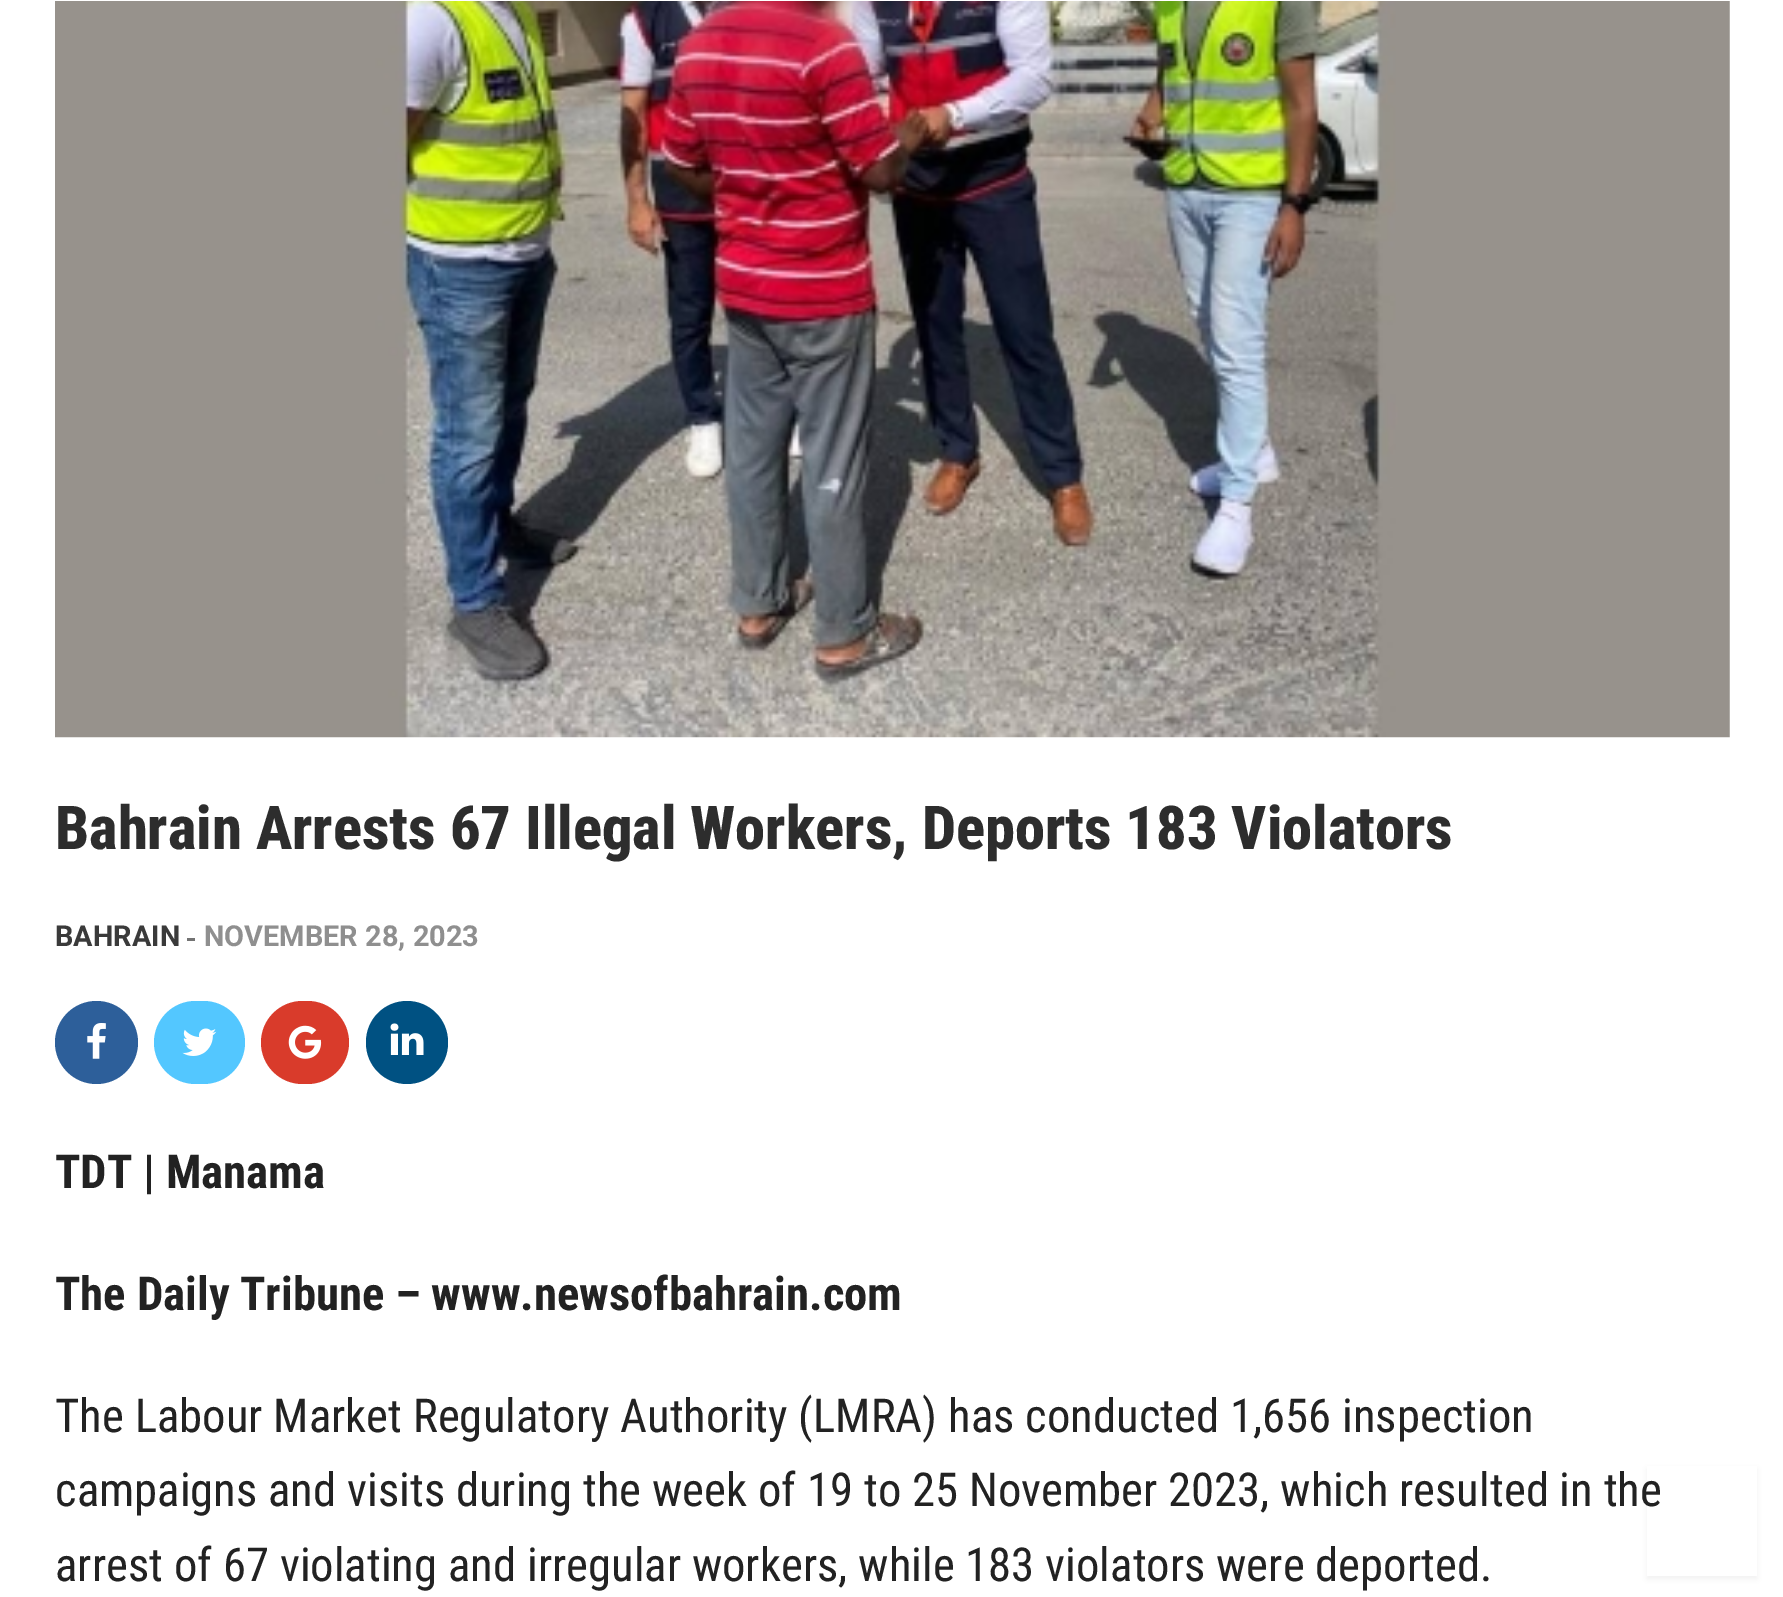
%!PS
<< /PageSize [1783 1597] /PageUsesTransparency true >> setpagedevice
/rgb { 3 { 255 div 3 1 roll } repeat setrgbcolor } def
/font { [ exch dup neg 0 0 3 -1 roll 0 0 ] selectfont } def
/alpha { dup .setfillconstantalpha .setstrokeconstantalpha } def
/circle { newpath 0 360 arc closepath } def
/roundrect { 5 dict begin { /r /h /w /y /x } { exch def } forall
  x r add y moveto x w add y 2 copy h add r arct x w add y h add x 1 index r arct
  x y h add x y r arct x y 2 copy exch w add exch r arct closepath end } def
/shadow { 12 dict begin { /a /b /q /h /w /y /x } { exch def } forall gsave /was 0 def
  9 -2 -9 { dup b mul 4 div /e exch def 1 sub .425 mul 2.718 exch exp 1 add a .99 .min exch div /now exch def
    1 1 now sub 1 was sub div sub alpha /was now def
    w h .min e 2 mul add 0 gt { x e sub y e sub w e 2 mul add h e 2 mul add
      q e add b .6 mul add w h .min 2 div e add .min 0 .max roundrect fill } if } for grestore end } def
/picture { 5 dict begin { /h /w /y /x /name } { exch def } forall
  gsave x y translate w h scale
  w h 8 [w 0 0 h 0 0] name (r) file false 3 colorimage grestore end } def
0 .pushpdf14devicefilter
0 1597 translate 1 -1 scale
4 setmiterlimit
255 255 255 rgb
0 0 1783 1597 rectfill
(img/1.rgb) 55 1 1675 737 picture
115 115 115 rgb
187 938 8 3 rectfill
45 95 154 rgb
96.5 1042.5 41.5 circle fill
(img/2.rgb) 87 1023 19 36 picture
83 199 255 rgb
154 1001 91 83 41.5 roundrect fill
(img/3.rgb) 182 1028 35 28 picture
217 59 43 rgb
261 1001 88 83 41.5 roundrect fill
(img/4.rgb) 288 1025 34 34 picture
0 81 130 rgb
366 1001 82 83 41 roundrect fill
(img/5.rgb) 390 1023 34 32 picture
gsave
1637 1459 moveto 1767 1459 lineto 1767 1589 lineto 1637 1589 lineto closepath 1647 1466 moveto 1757 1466 lineto 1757 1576 lineto 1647 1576 lineto closepath eoclip newpath
0 0 0 rgb
1647 1469 110 110 0 3 0.06 shadow
grestore
/RobotoCondensed-ExtraBold 60.5 font
45 45 45 rgb
55 849 moveto (Bahrain Arrests 67 Illegal Workers, Deports 183 Violators) show
/Roboto-Bold 28.9 font
58 58 58 rgb
55 946 moveto (BAHRAIN) show
143 143 143 rgb
204 946 moveto (NOVEMBER 28, 2023) show
/RobotoCondensed-Bold 46.75 font
34 34 34 rgb
55 1188 moveto (TDT | Manama) show
55 1310 moveto (The Daily Tribune – www.newsofbahrain.com) show
/RobotoCondensed-Regular 46.75 font
[
  [(The Labour Market Regulatory Authority \(LMRA\) has conducted 1,656 inspection) 55 1432]
  [(campaigns and visits during the week of 19 to 25 November 2023, which resulted in the) 55 1506]
  [(arrest of 67 violating and irregular workers, while 183 violators were deported.) 55 1581]
] { aload pop moveto show } forall
.poppdf14devicefilter showpage
